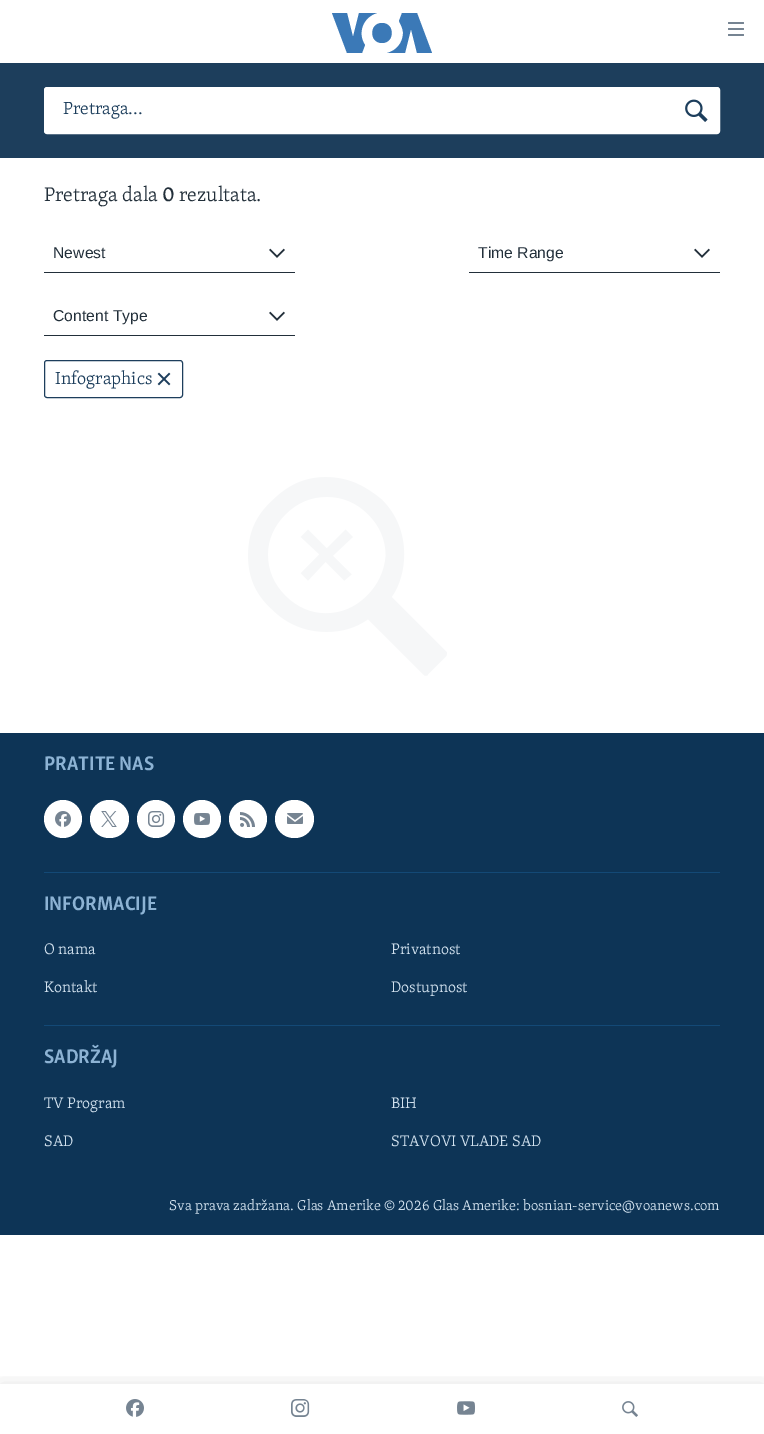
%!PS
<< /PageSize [764 1434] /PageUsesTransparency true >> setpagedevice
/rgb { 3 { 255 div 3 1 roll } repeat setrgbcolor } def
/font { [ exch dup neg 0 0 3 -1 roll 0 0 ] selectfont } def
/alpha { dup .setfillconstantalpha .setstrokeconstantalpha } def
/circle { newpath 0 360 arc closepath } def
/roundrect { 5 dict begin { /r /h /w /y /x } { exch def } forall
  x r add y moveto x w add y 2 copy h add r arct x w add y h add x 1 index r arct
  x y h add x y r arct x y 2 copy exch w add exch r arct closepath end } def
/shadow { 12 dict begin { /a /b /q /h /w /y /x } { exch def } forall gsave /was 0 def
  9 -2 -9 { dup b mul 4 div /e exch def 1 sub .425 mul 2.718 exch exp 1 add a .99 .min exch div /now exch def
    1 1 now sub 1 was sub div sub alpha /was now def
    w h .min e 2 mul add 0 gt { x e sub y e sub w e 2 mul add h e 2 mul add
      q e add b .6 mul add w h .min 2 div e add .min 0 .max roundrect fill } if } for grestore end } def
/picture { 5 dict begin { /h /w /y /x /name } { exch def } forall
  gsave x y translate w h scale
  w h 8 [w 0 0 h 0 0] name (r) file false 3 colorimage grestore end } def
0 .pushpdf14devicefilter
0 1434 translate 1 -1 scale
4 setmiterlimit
255 255 255 rgb
0 0 764 1434 rectfill
59 121 183 rgb
365 45 moveto 362 53 lineto 347 53 lineto 332 13 lineto 347 13 lineto 353 37 lineto 359 13 lineto 377 13 lineto 363 17 357 33 365 45 curveto closepath 382 23 moveto 369 23 369 43 382 43 curveto 395 43 395 23 382 23 curveto closepath 403 33 moveto 403 43 396 51 387 53 curveto 405 53 lineto 411 29 lineto 417 53 lineto 432 53 lineto 417 13 lineto 402 13 lineto 399 21 lineto 401 25 403 29 403 33 curveto closepath fill
(img/1.rgb) 728 22 16 14 picture
gsave
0 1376 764 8 rectclip
0 0 0 rgb
0 1384 764 50 0 10 0.1 shadow
grestore
(img/2.rgb) 126 1399 18 18 picture
(img/3.rgb) 291 1399 19 18 picture
(img/4.rgb) 457 1401 18 14 picture
(img/5.rgb) 622 1401 16 16 picture
29 62 92 rgb
0 63 764 95 rectfill
255 255 255 rgb
44.5 87.5 675 46 2.5 roundrect gsave fill grestore
stroke
(img/6.rgb) 685 99 23 23 picture
34 47 58 rgb
44 272 251 1 rectfill
(img/7.rgb) 269 248 16 10 picture
469 272 251 1 rectfill
(img/7.rgb) 694 248 16 10 picture
44 335 251 1 rectfill
(img/7.rgb) 269 311 16 10 picture
29 62 92 rgb
44.5 360.5 138 37 2.5 roundrect stroke
(img/8.rgb) 157 372 14 14 picture
(img/9.rgb) 248 477 199 199 picture
13 52 86 rgb
0 733 764 502 rectfill
255 255 255 rgb
63 819 19 circle fill
(img/10.rgb) 55 811 16 16 picture
90 800 39 38 19 roundrect fill
(img/11.rgb) 101 811 16 16 picture
156 819 19 circle fill
(img/12.rgb) 148 811 17 16 picture
202 819 19 circle fill
(img/13.rgb) 194 813 16 12 picture
248 819 19 circle fill
(img/14.rgb) 240 812 15 15 picture
275 800 39 38 19 roundrect fill
(img/15.rgb) 287 813 16 11 picture
19 73 118 rgb
44 872 676 1 rectfill
44 1025 676 1 rectfill
/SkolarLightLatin-Light 18 font
29 62 92 rgb
63 114 moveto (Pretraga...) show
/SkolarLightLatin-Light 20.25 font
34 47 58 rgb
44 201 moveto (Pretraga dala) show
/SkolarLightLatin-Bold 20.25 font
162 201 moveto (0) show
/SkolarLightLatin-Light 20.25 font
179 201 moveto (rezultata.) show
/LiberationSans-Regular 15.75 font
[
  [(Newest) 53 258]
  [(Time Range) 478 258]
  [(Content Type) 53 321]
] { aload pop moveto show } forall
/SkolarLightLatin-Light 18 font
29 62 92 rgb
55 384 moveto (Infographics) show
/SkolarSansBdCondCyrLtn-Bold 20.25 font
141 179 212 rgb
44 770 moveto (PRATITE NAS) show
44 910 moveto (INFORMACIJE) show
/SkolarLightLatin-Light 15.75 font
209 225 238 rgb
[
  [(O nama) 44 954]
  [(Privatnost) 391 954]
  [(Kontakt) 44 992]
  [(Dostupnost) 391 992]
] { aload pop moveto show } forall
/SkolarSansBdCondCyrLtn-Bold 20.25 font
141 179 212 rgb
44 1063 moveto (SADRŽAJ) show
/SkolarLightLatin-Light 15.75 font
209 225 238 rgb
[
  [(TV Program) 44 1108]
  [(BIH) 391 1108]
  [(SAD) 44 1146]
  [(STAVOVI VLADE SAD) 391 1146]
] { aload pop moveto show } forall
/SkolarLightLatin-Light 14.6 font
169 1210 moveto (Sva prava zadržana. Glas Amerike © 2026 Glas Amerike: bosnian-service@voanews.com) show
.poppdf14devicefilter showpage
